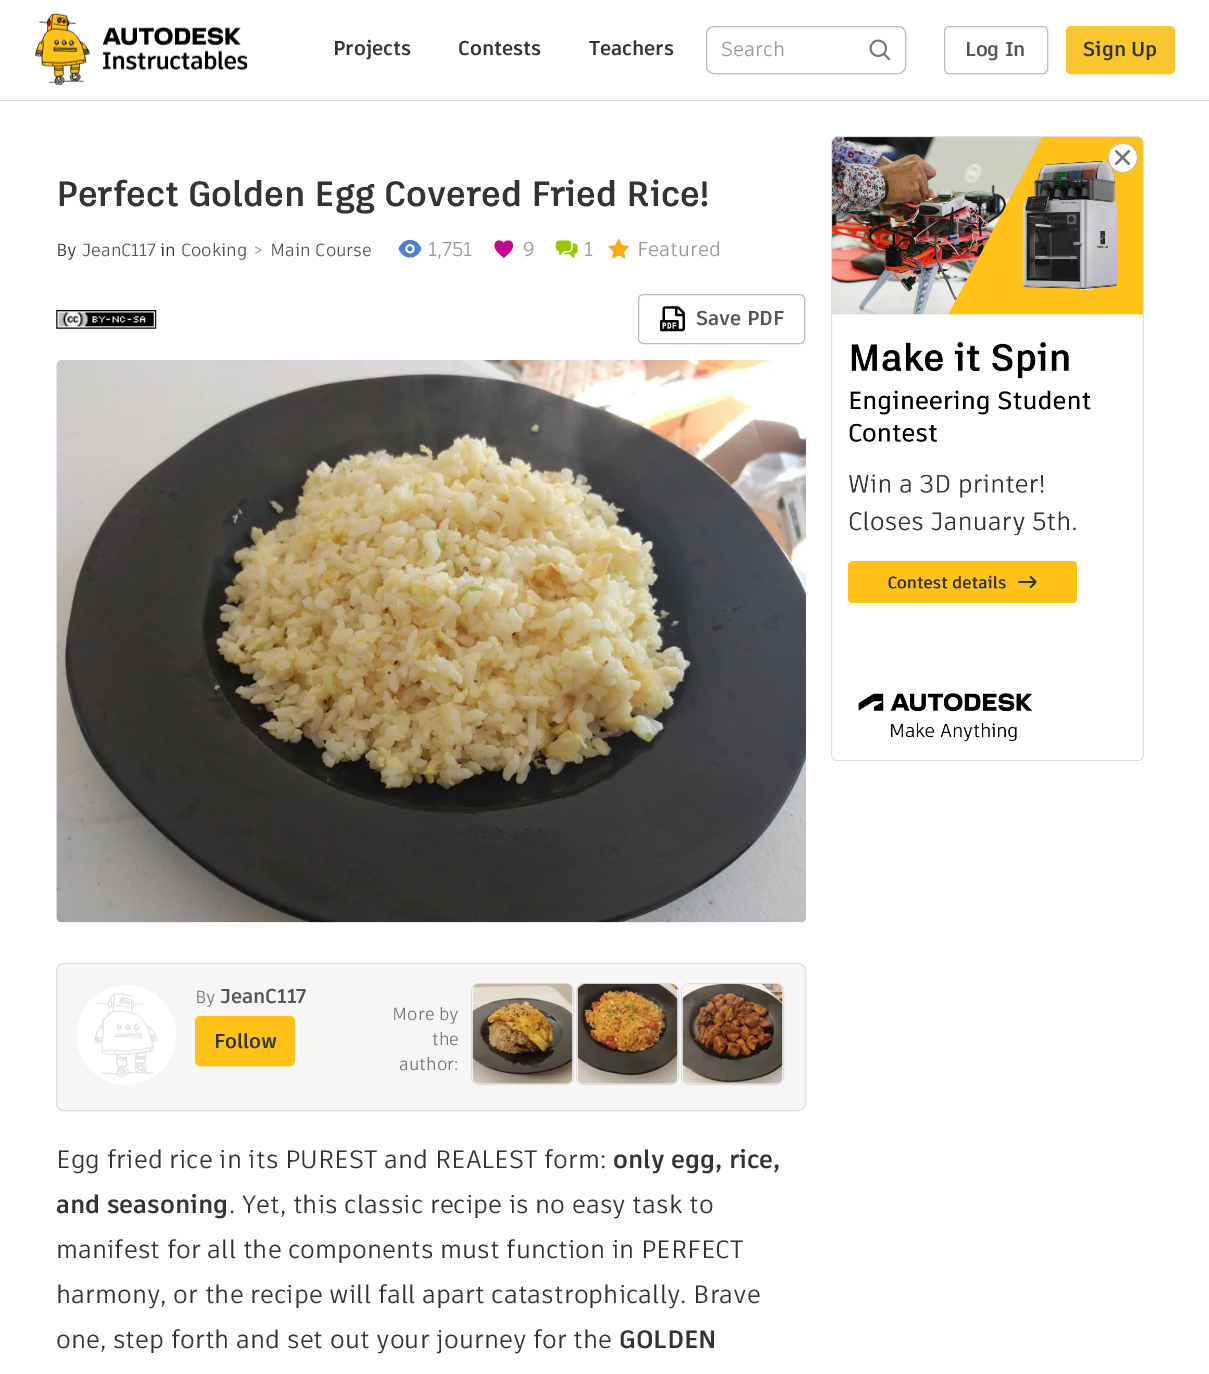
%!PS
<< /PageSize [1209 1374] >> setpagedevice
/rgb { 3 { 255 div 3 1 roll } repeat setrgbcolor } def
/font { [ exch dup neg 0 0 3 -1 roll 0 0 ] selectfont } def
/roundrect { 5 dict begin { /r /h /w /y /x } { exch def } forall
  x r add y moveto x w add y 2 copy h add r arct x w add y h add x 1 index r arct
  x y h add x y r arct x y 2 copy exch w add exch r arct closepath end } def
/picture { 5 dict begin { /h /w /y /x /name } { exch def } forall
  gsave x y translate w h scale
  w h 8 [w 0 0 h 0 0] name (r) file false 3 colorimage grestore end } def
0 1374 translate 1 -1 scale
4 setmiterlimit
255 255 255 rgb
0 0 1209 1374 rectfill
221 221 221 rgb
0 100 1209 1 rectfill
(img/1.rgb) 35 13 213 72 picture
187 187 187 rgb
706.5 26.5 199 47 7.5 roundrect stroke
(img/2.rgb) 869 39 22 22 picture
944.5 26.5 103 47 4.5 roundrect stroke
250 198 45 rgb
1067.5 27.5 106 45 3.5 roundrect gsave fill grestore
3 setlinewidth
stroke
(img/3.rgb) 398 239 24 19 picture
(img/4.rgb) 494 240 20 18 picture
(img/5.rgb) 555 240 23 18 picture
(img/6.rgb) 608 239 21 20 picture
(img/7.rgb) 56 310 101 19 picture
187 187 187 rgb
1 setlinewidth
638.5 294.5 166 49 4.5 roundrect stroke
(img/8.rgb) 660 306 25 26 picture
(img/9.rgb) 56 360 750 563 picture
246 246 246 rgb
56.5 963.5 749 147 7.5 roundrect gsave fill grestore
221 221 221 rgb
stroke
(img/10.rgb) 76 985 100 100 picture
255 194 26 rgb
195.5 1016.5 99 49 4.5 roundrect gsave fill grestore
stroke
255 255 255 rgb
471.5 983.5 102 101 7.5 roundrect gsave fill grestore
221 221 221 rgb
stroke
(img/11.rgb) 472 984 101 100 picture
255 255 255 rgb
576.5 983.5 102 101 7.5 roundrect gsave fill grestore
221 221 221 rgb
stroke
(img/12.rgb) 577 983 101 101 picture
255 255 255 rgb
681.5 983.5 102 101 7.5 roundrect gsave fill grestore
221 221 221 rgb
stroke
(img/13.rgb) 682 983 101 101 picture
(img/14.rgb) 831 136 313 625 picture
(img/15.rgb) 1108 143 30 30 picture
/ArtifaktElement-Bold 20 font
51 51 51 rgb
[
  [(Projects) 333 55]
  [(Contests) 458 55]
  [(Teachers) 589 55]
] { aload pop moveto show } forall
/ArtifaktElement-Regular 20 font
153 153 153 rgb
721 56 moveto (Search) show
/ArtifaktElement-Bold 20 font
85 85 85 rgb
965 56 moveto (Log In) show
51 51 51 rgb
1083 56 moveto (Sign Up) show
/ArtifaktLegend-Bold 35 font
56 206 moveto (Perfect Golden Egg Covered Fried Rice!) show
/ArtifaktElement-Regular 17.5 font
56 256 moveto (By) show
85 85 85 rgb
82 256 moveto (JeanC117) show
51 51 51 rgb
160 256 moveto (in) show
85 85 85 rgb
181 256 moveto (Cooking) show
153 153 153 rgb
253 256 moveto (>) show
85 85 85 rgb
270 256 moveto (Main Course) show
/ArtifaktElement-Regular 20 font
153 153 153 rgb
[
  [(1,751) 428 256]
  [(9) 523 256]
  [(1) 584 256]
  [(Featured) 637 256]
] { aload pop moveto show } forall
/ArtifaktElement-Bold 20 font
85 85 85 rgb
696 325 moveto (Save PDF) show
/ArtifaktElement-Regular 17.5 font
119 119 119 rgb
195 1003 moveto (By) show
/ArtifaktElement-Bold 20 font
85 85 85 rgb
220 1003 moveto (JeanC117) show
51 51 51 rgb
214 1048 moveto (Follow) show
/ArtifaktElement-Regular 17.5 font
119 119 119 rgb
[
  [(More by) 392 1020]
  [(the) 432 1045]
  [(author:) 399 1070]
] { aload pop moveto show } forall
/ArtifaktElement-Regular 25 font
51 51 51 rgb
56 1168 moveto (Egg fried rice in its PUREST and REALEST form:) show
/ArtifaktElement-Bold 25 font
613 1168 moveto (only egg, rice,) show
56 1213 moveto (and seasoning) show
/ArtifaktElement-Regular 25 font
[
  [(. Yet, this classic recipe is no easy task to) 229 1213]
  [(manifest for all the components must function in PERFECT) 56 1258]
  [(harmony, or the recipe will fall apart catastrophically. Brave) 56 1303]
  [(one, step forth and set out your journey for the) 56 1348]
] { aload pop moveto show } forall
/ArtifaktElement-Bold 25 font
619 1348 moveto (GOLDEN) show
showpage
